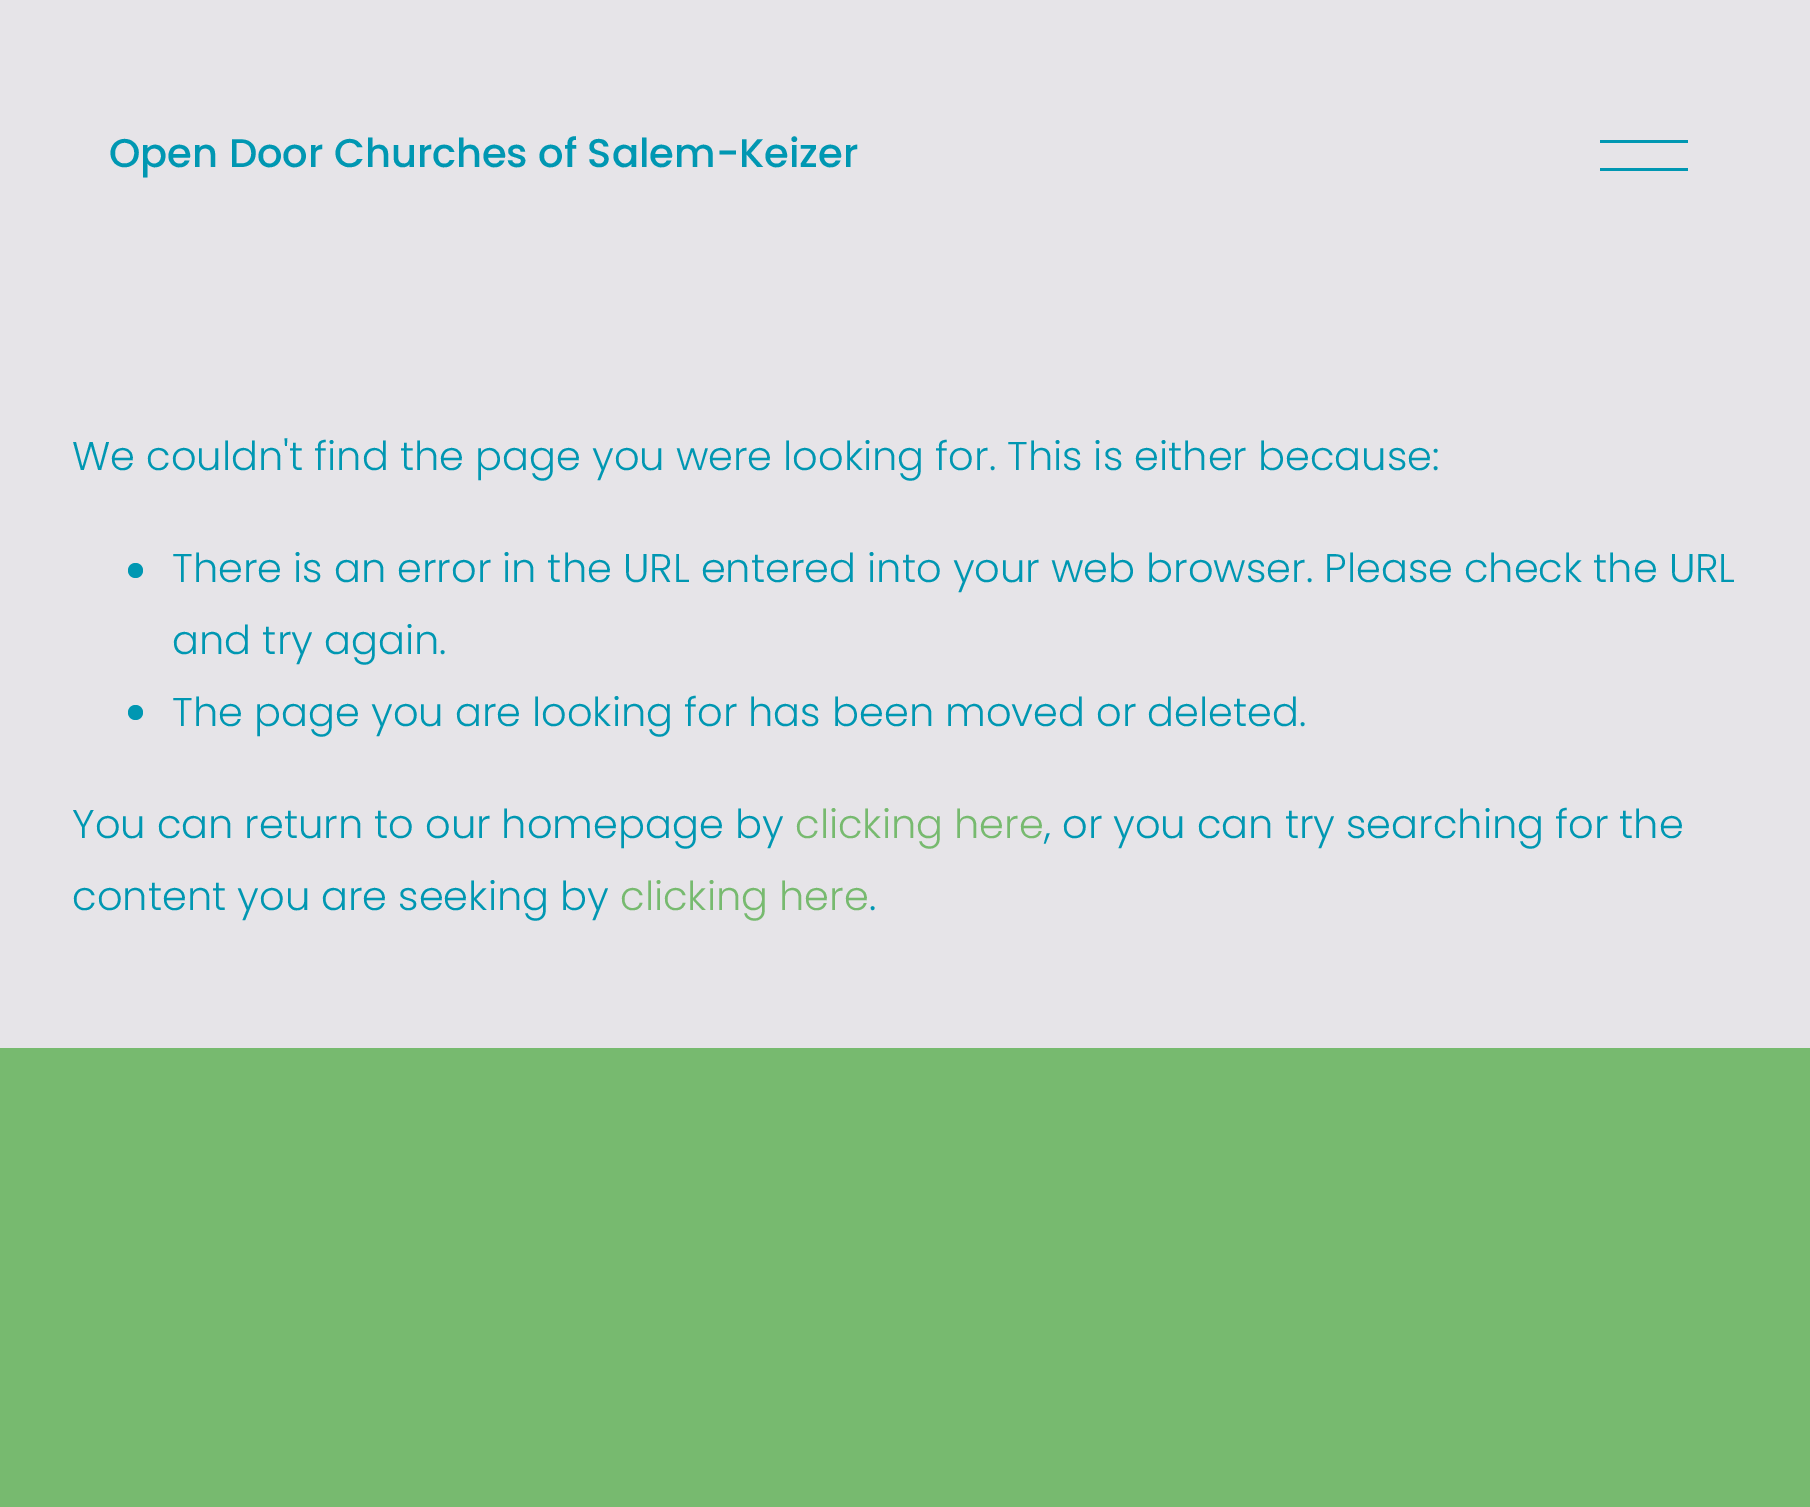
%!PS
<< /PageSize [1810 1507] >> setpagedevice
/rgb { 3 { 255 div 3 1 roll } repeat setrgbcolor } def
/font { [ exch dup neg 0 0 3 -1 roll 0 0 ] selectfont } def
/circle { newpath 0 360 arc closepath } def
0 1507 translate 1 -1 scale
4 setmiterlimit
230 228 232 rgb
0 0 1810 1507 rectfill
0 151 178 rgb
1600 140 88 3 rectfill
1600 168 88 3 rectfill
135.5 570.5 7.5 circle fill
135.5 712.5 7.5 circle fill
119 186 111 rgb
0 1048 1810 459 rectfill
/Poppins-Medium 40 font
0 151 178 rgb
109 167 moveto (Open Door Churches of Salem-Keizer) show
/Poppins-Light 40 font
[
  [(We couldn't find the page you were looking for. This is either because:) 72 470]
  [(There is an error in the URL entered into your web browser. Please check the URL) 172 582]
  [(and try again.) 172 654]
  [(The page you are looking for has been moved or deleted.) 172 726]
  [(You can return to our homepage by) 72 838]
] { aload pop moveto show } forall
119 186 111 rgb
795 838 moveto (clicking here) show
0 151 178 rgb
1044 838 moveto (, or you can try searching for the) show
72 910 moveto (content you are seeking by) show
119 186 111 rgb
620 910 moveto (clicking here) show
0 151 178 rgb
869 910 moveto (.) show
showpage
